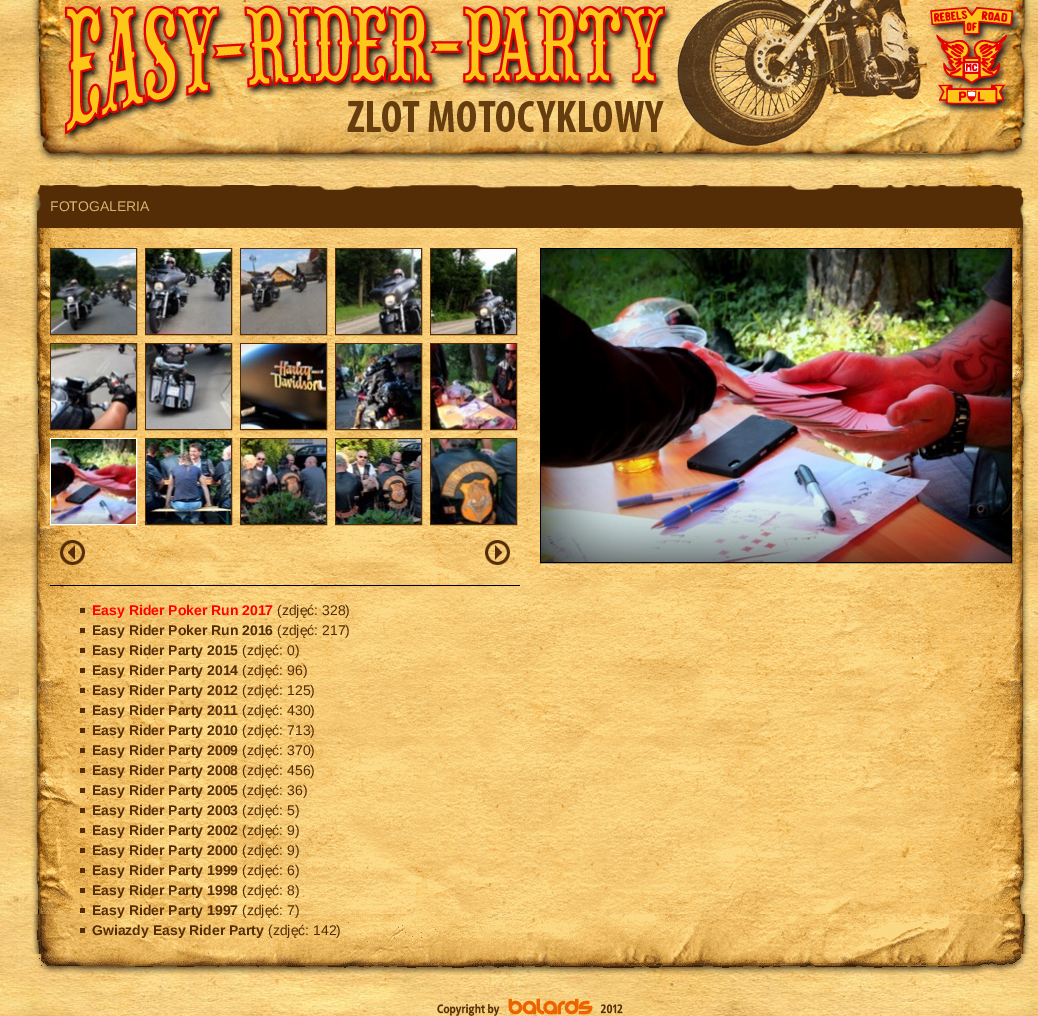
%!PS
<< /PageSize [1038 1016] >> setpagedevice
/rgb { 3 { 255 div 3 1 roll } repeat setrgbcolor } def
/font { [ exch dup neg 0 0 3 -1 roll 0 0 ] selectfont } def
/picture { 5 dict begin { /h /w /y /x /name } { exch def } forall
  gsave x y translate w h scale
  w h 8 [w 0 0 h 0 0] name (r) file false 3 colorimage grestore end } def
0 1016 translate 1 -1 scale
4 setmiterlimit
255 255 255 rgb
0 0 1038 1016 rectfill
(img/1.rgb) 0 0 1038 1016 picture
(img/2.rgb) 32 0 999 163 picture
(img/3.rgb) 677 0 250 146 picture
(img/4.rgb) 928 6 92 108 picture
(img/5.rgb) 31 185 998 43 picture
(img/6.rgb) 37 228 987 726 picture
(img/26.rgb) 33 914 996 61 picture
(img/27.rgb) 37 914 988 54 picture
(img/7.rgb) 31 228 999 726 picture
0 0 0 rgb
540.5 248.5 471 314 rectstroke
(img/8.rgb) 541 249 470 313 picture
50 585 470 1 rectfill
84 45 6 rgb
50.5 248.5 86 86 rectstroke
(img/9.rgb) 51 249 85 85 picture
145.5 248.5 86 86 rectstroke
(img/10.rgb) 146 249 85 85 picture
240.5 248.5 86 86 rectstroke
(img/11.rgb) 241 249 85 85 picture
335.5 248.5 86 86 rectstroke
(img/12.rgb) 336 249 85 85 picture
430.5 248.5 86 86 rectstroke
(img/13.rgb) 431 249 85 85 picture
50.5 343.5 86 86 rectstroke
(img/14.rgb) 51 344 85 85 picture
145.5 343.5 86 86 rectstroke
(img/15.rgb) 146 344 85 85 picture
240.5 343.5 86 86 rectstroke
(img/16.rgb) 241 344 85 85 picture
335.5 343.5 86 86 rectstroke
(img/17.rgb) 336 344 85 85 picture
430.5 343.5 86 86 rectstroke
(img/18.rgb) 431 344 85 85 picture
255 255 255 rgb
50.5 438.5 86 86 rectstroke
(img/19.rgb) 51 439 85 85 picture
84 45 6 rgb
145.5 438.5 86 86 rectstroke
(img/20.rgb) 146 439 85 85 picture
240.5 438.5 86 86 rectstroke
(img/21.rgb) 241 439 85 85 picture
335.5 438.5 86 86 rectstroke
(img/22.rgb) 336 439 85 85 picture
430.5 438.5 86 86 rectstroke
(img/23.rgb) 431 439 85 85 picture
(img/24.rgb) 60 540 25 25 picture
(img/25.rgb) 485 540 25 25 picture
[
  [80 608 5 5 84 45 6]
  [80 628 5 5 84 45 6]
  [80 648 5 5 84 45 6]
  [80 668 5 5 84 45 6]
  [80 688 5 5 84 45 6]
  [80 708 5 5 84 45 6]
  [80 728 5 5 84 45 6]
  [80 748 5 5 84 45 6]
  [80 768 5 5 84 45 6]
  [80 788 5 5 84 45 6]
  [80 808 5 5 84 45 6]
  [80 828 5 5 84 45 6]
  [80 848 5 5 84 45 6]
  [80 868 5 5 84 45 6]
  [80 888 5 5 84 45 6]
  [80 908 5 5 84 45 6]
  [80 928 5 5 84 45 6]
] { aload pop rgb rectfill } forall
(img/28.rgb) 437 998 186 18 picture
/LiberationSans-Regular 14 font
212 180 114 rgb
50 211 moveto (FOTOGALERIA) show
/LiberationSans-Bold 14 font
255 0 0 rgb
92 615 moveto (Easy Rider Poker Run 2017) show
/LiberationSans-Regular 14 font
84 45 6 rgb
277 615 moveto (\(zdjęć: 328\)) show
/LiberationSans-Bold 14 font
92 635 moveto (Easy Rider Poker Run 2016) show
/LiberationSans-Regular 14 font
277 635 moveto (\(zdjęć: 217\)) show
/LiberationSans-Bold 14 font
92 655 moveto (Easy Rider Party 2015) show
/LiberationSans-Regular 14 font
242 655 moveto (\(zdjęć: 0\)) show
/LiberationSans-Bold 14 font
92 675 moveto (Easy Rider Party 2014) show
/LiberationSans-Regular 14 font
242 675 moveto (\(zdjęć: 96\)) show
/LiberationSans-Bold 14 font
92 695 moveto (Easy Rider Party 2012) show
/LiberationSans-Regular 14 font
242 695 moveto (\(zdjęć: 125\)) show
/LiberationSans-Bold 14 font
92 715 moveto (Easy Rider Party 2011) show
/LiberationSans-Regular 14 font
242 715 moveto (\(zdjęć: 430\)) show
/LiberationSans-Bold 14 font
92 735 moveto (Easy Rider Party 2010) show
/LiberationSans-Regular 14 font
242 735 moveto (\(zdjęć: 713\)) show
/LiberationSans-Bold 14 font
92 755 moveto (Easy Rider Party 2009) show
/LiberationSans-Regular 14 font
242 755 moveto (\(zdjęć: 370\)) show
/LiberationSans-Bold 14 font
92 775 moveto (Easy Rider Party 2008) show
/LiberationSans-Regular 14 font
242 775 moveto (\(zdjęć: 456\)) show
/LiberationSans-Bold 14 font
92 795 moveto (Easy Rider Party 2005) show
/LiberationSans-Regular 14 font
242 795 moveto (\(zdjęć: 36\)) show
/LiberationSans-Bold 14 font
92 815 moveto (Easy Rider Party 2003) show
/LiberationSans-Regular 14 font
242 815 moveto (\(zdjęć: 5\)) show
/LiberationSans-Bold 14 font
92 835 moveto (Easy Rider Party 2002) show
/LiberationSans-Regular 14 font
242 835 moveto (\(zdjęć: 9\)) show
/LiberationSans-Bold 14 font
92 855 moveto (Easy Rider Party 2000) show
/LiberationSans-Regular 14 font
242 855 moveto (\(zdjęć: 9\)) show
/LiberationSans-Bold 14 font
92 875 moveto (Easy Rider Party 1999) show
/LiberationSans-Regular 14 font
242 875 moveto (\(zdjęć: 6\)) show
/LiberationSans-Bold 14 font
92 895 moveto (Easy Rider Party 1998) show
/LiberationSans-Regular 14 font
242 895 moveto (\(zdjęć: 8\)) show
/LiberationSans-Bold 14 font
92 915 moveto (Easy Rider Party 1997) show
/LiberationSans-Regular 14 font
242 915 moveto (\(zdjęć: 7\)) show
/LiberationSans-Bold 14 font
92 935 moveto (Gwiazdy Easy Rider Party) show
/LiberationSans-Regular 14 font
268 935 moveto (\(zdjęć: 142\)) show
showpage
